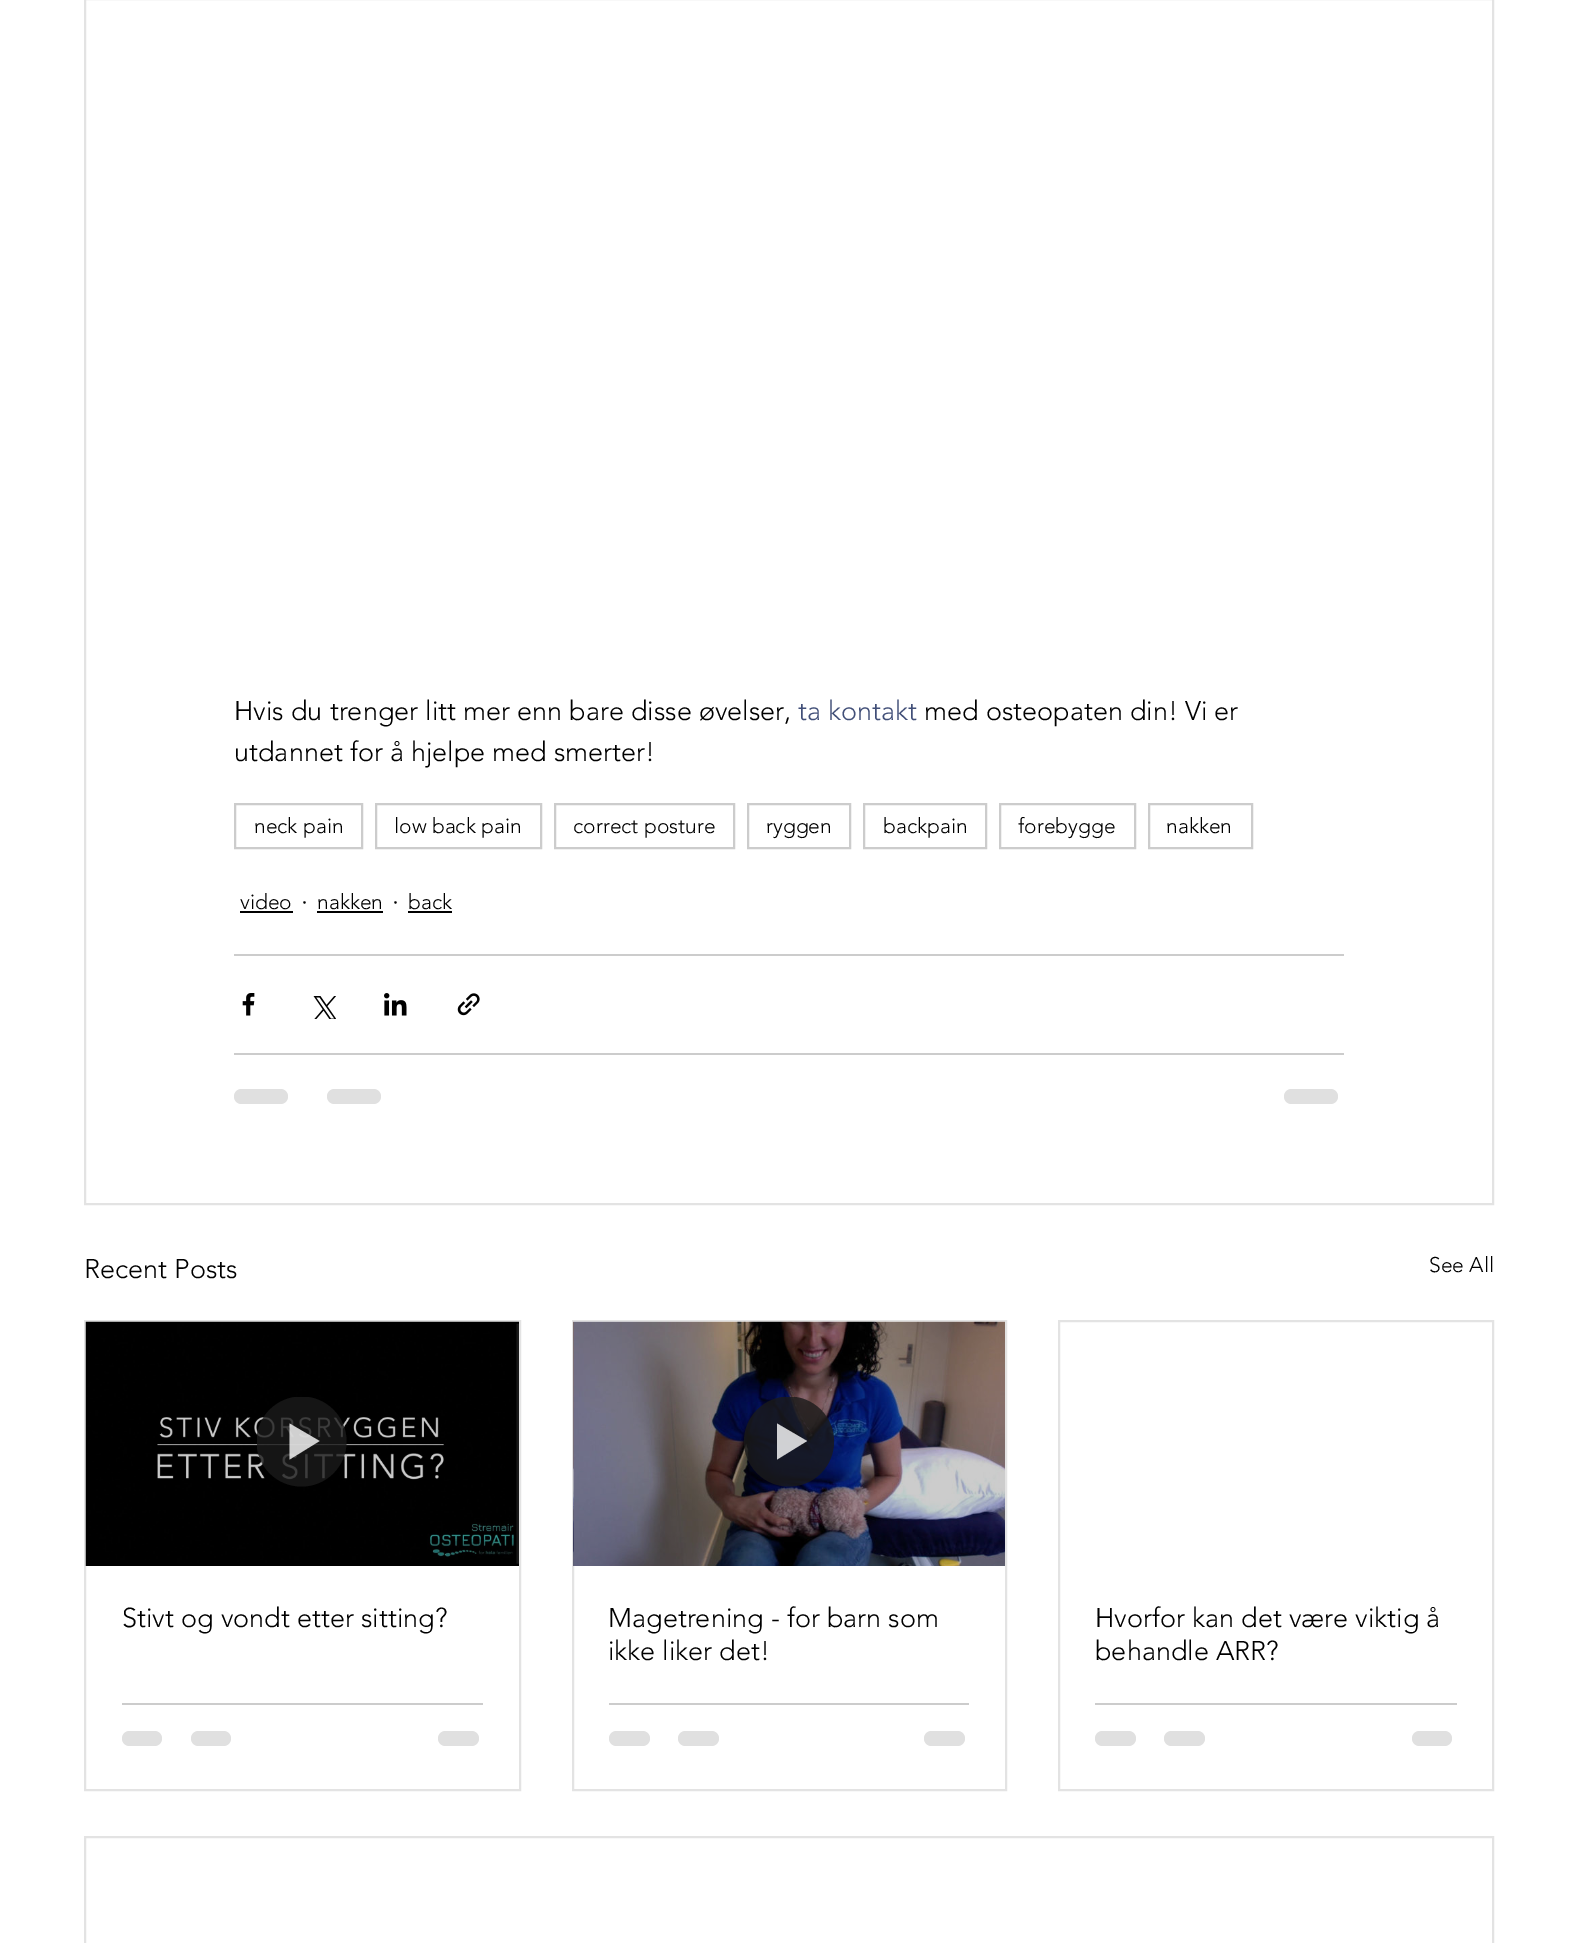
%!PS
<< /PageSize [1577 1943] /PageUsesTransparency true >> setpagedevice
/rgb { 3 { 255 div 3 1 roll } repeat setrgbcolor } def
/font { [ exch dup neg 0 0 3 -1 roll 0 0 ] selectfont } def
/alpha { dup .setfillconstantalpha .setstrokeconstantalpha } def
/circle { newpath 0 360 arc closepath } def
/roundrect { 5 dict begin { /r /h /w /y /x } { exch def } forall
  x r add y moveto x w add y 2 copy h add r arct x w add y h add x 1 index r arct
  x y h add x y r arct x y 2 copy exch w add exch r arct closepath end } def
/picture { 5 dict begin { /h /w /y /x /name } { exch def } forall
  gsave x y translate w h scale
  w h 8 [w 0 0 h 0 0] name (r) file false 3 colorimage grestore end } def
0 .pushpdf14devicefilter
0 1943 translate 1 -1 scale
4 setmiterlimit
255 255 255 rgb
0 0 1577 1943 rectfill
227 227 227 rgb
2 setlinewidth
85 -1 1408 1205 rectstroke
204 204 204 rgb
235 804 127 44 rectstroke
376 804 165 44 rectstroke
555 804 179 44 rectstroke
748 804 102 44 rectstroke
864 804 122 44 rectstroke
1000 804 135 44 rectstroke
1149 804 103 44 rectstroke
[
  [240 911 53 2 0 0 0]
  [317 911 66 2 0 0 0]
  [408 911 44 2 0 0 0]
  [234 954 1110 2 204 204 204]
] { aload pop rgb rectfill } forall
(img/1.rgb) 242 993 13 23 picture
(img/2.rgb) 313 996 23 23 picture
(img/3.rgb) 384 993 23 23 picture
(img/4.rgb) 457 993 23 23 picture
234 1053 1110 2 rectfill
224 224 224 rgb
234 1089 54 15 7.5 roundrect fill
327 1089 54 15 7.5 roundrect fill
1284 1089 54 15 7.5 roundrect fill
227 227 227 rgb
85 1321 435 469 rectstroke
(img/5.rgb) 85 1321 434 245 picture
gsave
257 1397 90 90 rectclip
0.8 alpha
26 26 26 rgb
301.5 1441.5 45 circle fill
grestore
0.8 alpha
255 255 255 rgb
289.5 1423.5 moveto 289.5 1459.5 lineto 319.5 1441 lineto closepath fill
1 alpha
204 204 204 rgb
122 1703 361 2 rectfill
224 224 224 rgb
122 1731 40 15 7.5 roundrect fill
191 1731 40 15 7.5 roundrect fill
438 1731 41 15 7.5 roundrect fill
227 227 227 rgb
573 1321 433 469 rectstroke
(img/6.rgb) 573 1321 432 245 picture
gsave
744 1397 90 90 rectclip
0.8 alpha
26 26 26 rgb
789 1441.5 45 circle fill
grestore
0.8 alpha
255 255 255 rgb
777 1423.5 moveto 777 1459.5 lineto 807 1441 lineto closepath fill
1 alpha
204 204 204 rgb
609 1703 360 2 rectfill
224 224 224 rgb
609 1731 41 15 7.5 roundrect fill
678 1731 41 15 7.5 roundrect fill
924 1731 41 15 7.5 roundrect fill
227 227 227 rgb
1059 1321 434 469 rectstroke
204 204 204 rgb
1095 1703 362 2 rectfill
224 224 224 rgb
1095 1731 41 15 7.5 roundrect fill
1164 1731 41 15 7.5 roundrect fill
1412 1731 40 15 7.5 roundrect fill
227 227 227 rgb
85 1837 1408 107 rectstroke
/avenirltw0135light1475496-Light 27 font
0 0 0 rgb
234 720 moveto (Hvis du trenger litt mer enn bare disse øvelser,) show
65 79 120 rgb
798 720 moveto (ta kontakt) show
0 0 0 rgb
924 720 moveto (med osteopaten din! Vi er) show
234 761 moveto (utdannet for å hjelpe med smerter!) show
/avenirltw0135light1475496-Light 21 font
[
  [(neck pain) 254 833]
  [(low back pain) 394 833]
  [(correct posture) 573 833]
  [(ryggen) 766 833]
  [(backpain) 883 833]
  [(forebygge) 1018 833]
  [(nakken) 1166 833]
  [(video) 240 909]
] { aload pop moveto show } forall
/avenirltw0135light1475496-Light 27 font
301 911 moveto (·) show
/avenirltw0135light1475496-Light 21 font
317 909 moveto (nakken) show
/avenirltw0135light1475496-Light 27 font
392 911 moveto (·) show
/avenirltw0135light1475496-Light 21 font
408 909 moveto (back) show
/avenirltw0135light1475496-Light 27 font
84 1278 moveto (Recent Posts) show
/avenirltw0135light1475496-Light 21 font
1429 1272 moveto (See All) show
/avenirltw0135light1475496-Light 27 font
[
  [(Stivt og vondt etter sitting?) 122 1627]
  [(Magetrening - for barn som) 608 1627]
  [(ikke liker det!) 608 1660]
  [(Hvorfor kan det være viktig å) 1095 1627]
  [(behandle ARR?) 1095 1660]
] { aload pop moveto show } forall
.poppdf14devicefilter showpage
